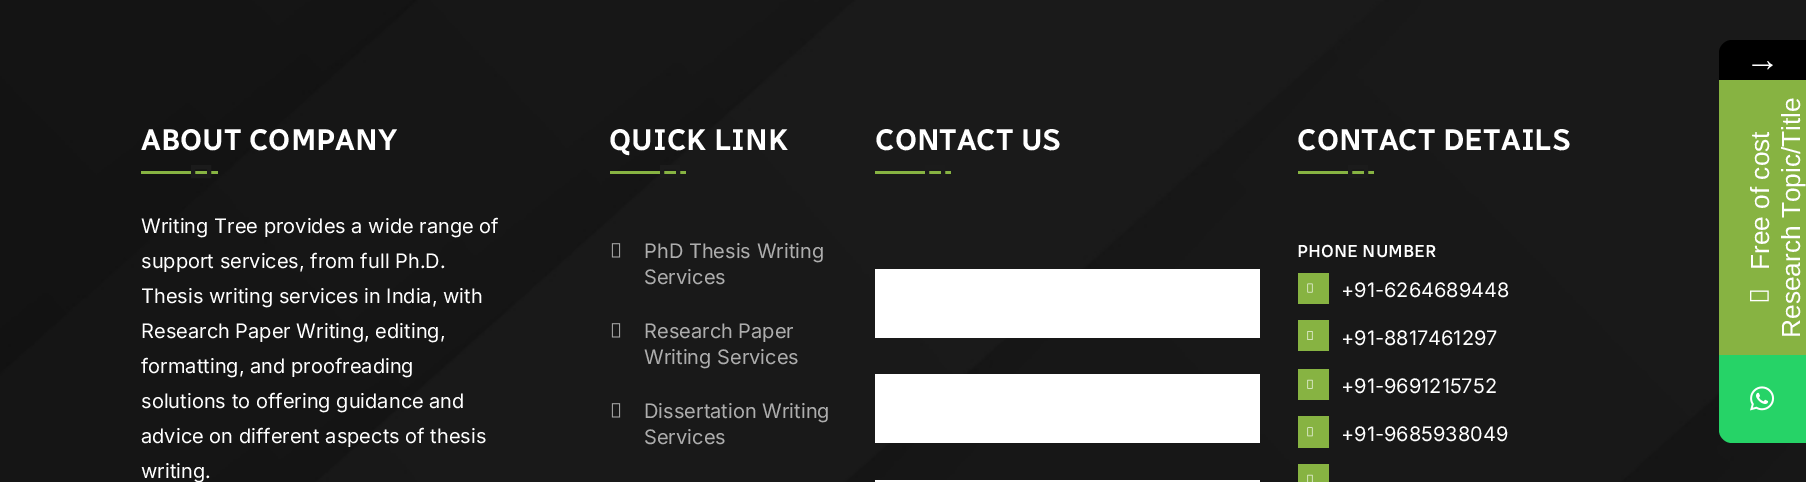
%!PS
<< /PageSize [1806 482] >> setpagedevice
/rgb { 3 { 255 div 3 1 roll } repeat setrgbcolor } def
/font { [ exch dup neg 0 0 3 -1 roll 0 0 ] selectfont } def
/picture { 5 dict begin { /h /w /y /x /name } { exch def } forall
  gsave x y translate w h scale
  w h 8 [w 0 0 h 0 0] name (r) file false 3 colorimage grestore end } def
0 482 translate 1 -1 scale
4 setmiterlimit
255 255 255 rgb
0 0 1806 482 rectfill
(img/1.rgb) 0 0 1806 482 picture
135 179 66 rgb
141 171 77 3 rectfill
27 27 27 rgb
4 setlinewidth
193 167 16 9 rectstroke
135 179 66 rgb
610 171 76 3 rectfill
27 27 27 rgb
662 167 16 9 rectstroke
(img/2.rgb) 611 243 10 15 picture
(img/2.rgb) 611 323 10 15 picture
(img/2.rgb) 611 403 10 15 picture
135 179 66 rgb
875 171 76 3 rectfill
27 27 27 rgb
927 167 16 9 rectstroke
[
  [875 269 385 69 255 255 255]
  [875 374 385 69 255 255 255]
  [875 480 385 2 255 255 255]
  [1298 171 76 3 135 179 66]
] { aload pop rgb rectfill } forall
27 27 27 rgb
1350 167 16 9 rectstroke
135 179 66 rgb
1298 273 31 31 rectfill
(img/3.rgb) 1307 283 6 10 picture
1298 320 31 31 rectfill
(img/4.rgb) 1307 331 6 9 picture
1298 369 31 31 rectfill
(img/5.rgb) 1307 379 6 10 picture
1298 416 31 32 rectfill
(img/6.rgb) 1307 427 6 10 picture
1298 464 31 18 rectfill
(img/7.rgb) 1307 474 6 8 picture
0 0 0 rgb
1732 40 moveto 1806 40 lineto 1806 80 lineto 1719 80 lineto 1719 53 lineto 1719 46 1725 40 1732 40 curveto closepath fill
135 179 66 rgb
1719 80 87 275 rectfill
(img/8.rgb) 1750 290 19 12 picture
38 211 103 rgb
1719 355 moveto 1806 355 lineto 1806 443 lineto 1732 443 lineto 1725 443 1719 437 1719 430 curveto closepath fill
(img/9.rgb) 1750 386 25 25 picture
/RadioCanada-SemiBold 30 font
255 255 255 rgb
141 150 moveto (ABOUT COMPANY) show
/Inter-Regular 20 font
[
  [(Writing Tree provides a wide range of) 141 233]
  [(support services, from full Ph.D.) 141 268]
  [(Thesis writing services in India, with) 141 303]
  [(Research Paper Writing, editing,) 141 338]
  [(formatting, and proofreading) 141 373]
  [(solutions to offering guidance and) 141 408]
  [(advice on different aspects of thesis) 141 443]
  [(writing.) 141 478]
] { aload pop moveto show } forall
/RadioCanada-SemiBold 30 font
609 150 moveto (QUICK LINK) show
/Inter-Regular 20 font
173 173 173 rgb
[
  [(PhD Thesis Writing) 644 258]
  [(Services) 644 284]
  [(Research Paper) 644 338]
  [(Writing Services) 644 364]
  [(Dissertation Writing) 644 418]
  [(Services) 644 444]
] { aload pop moveto show } forall
/RadioCanada-SemiBold 30 font
255 255 255 rgb
875 150 moveto (CONTACT US) show
1297 150 moveto (CONTACT DETAILS) show
/RadioCanada-Medium 17.5 font
1297 257 moveto (PHONE NUMBER) show
/Inter-Regular 20 font
[
  [(+91-6264689448) 1341 297]
  [(+91-8817461297) 1341 345]
  [(+91-9691215752) 1341 393]
  [(+91-9685938049) 1341 441]
] { aload pop moveto show } forall
/LiberationSans-Regular 35 font
1745 71 moveto (→) show
/LiberationSans-Regular 26.25 font
gsave 1769 270 translate -90 rotate 0 0 moveto (Free of cost) show grestore
gsave 1800 338 translate -90 rotate 0 0 moveto (Research Topic/Title) show grestore
showpage
